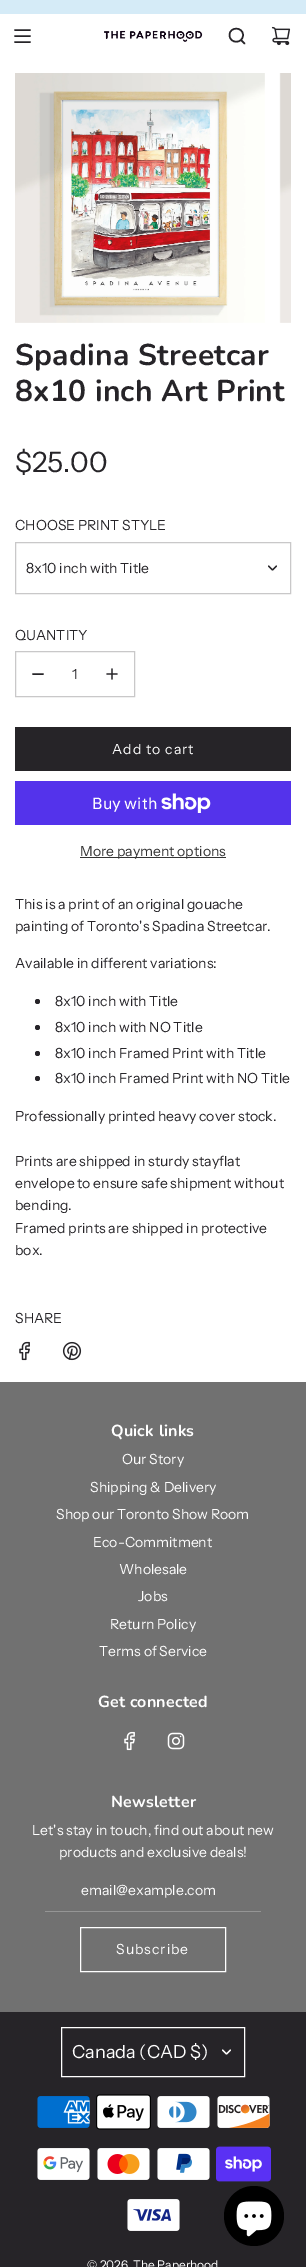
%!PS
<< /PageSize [306 2267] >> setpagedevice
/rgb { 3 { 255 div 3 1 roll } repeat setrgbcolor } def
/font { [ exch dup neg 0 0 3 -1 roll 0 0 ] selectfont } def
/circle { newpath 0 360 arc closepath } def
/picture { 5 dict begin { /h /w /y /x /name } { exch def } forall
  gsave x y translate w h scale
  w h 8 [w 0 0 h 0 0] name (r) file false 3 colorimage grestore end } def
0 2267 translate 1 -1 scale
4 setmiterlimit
255 255 255 rgb
0 0 306 2267 rectfill
213 235 247 rgb
0 0 306 14 rectfill
38 36 40 rgb
1.5 setlinewidth
1 setlinecap
1 setlinejoin
15 30 moveto 30 30 lineto 15 36 moveto 30 36 lineto 15 42 moveto 30 42 lineto stroke
(img/1.rgb) 104 30 99 12 picture
241 40 moveto 244.5 43.5 lineto 229.5 35 moveto 229.5 44 243 44 243 35 curveto 243 26.5 229.5 26.5 229.5 35 curveto closepath stroke
(img/2.rgb) 271 26 20 20 picture
(img/3.rgb) 15 73 250 250 picture
(img/4.rgb) 279 73 12 250 picture
201 200 201 rgb
1 setlinewidth
0 setlinecap
0 setlinejoin
15.5 542.5 275 51 rectstroke
38 36 40 rgb
1.2 setlinewidth
1 setlinecap
1 setlinejoin
268.5 566 moveto 272.5 570 lineto 276.5 566 lineto stroke
201 200 201 rgb
1 setlinewidth
0 setlinecap
0 setlinejoin
15.5 651.5 119 45 rectstroke
38 36 40 rgb
1.5 setlinewidth
1 setlinecap
1 setlinejoin
33 674 moveto 43 674 lineto stroke
(img/5.rgb) 106 668 12 12 picture
15 727 276 44 rectfill
84 51 235 rgb
15 781 276 44 rectfill
(img/6.rgb) 161 793 50 20 picture
51 51 51 rgb
80 857 146 1 rectfill
38 36 40 rgb
37.5 1001.5 2.5 circle fill
37.5 1027.5 2.5 circle fill
37.5 1053.5 2.5 circle fill
37.5 1078.5 2.5 circle fill
(img/7.rgb) 19 1341 11 20 picture
(img/8.rgb) 62 1341 20 20 picture
113 113 113 rgb
0 1382 306 630 rectfill
(img/9.rgb) 124 1731 11 20 picture
(img/10.rgb) 167 1732 18 18 picture
149 149 149 rgb
45 1911 216 1 rectfill
255 255 255 rgb
1 setlinewidth
0 setlinecap
0 setlinejoin
80.5 1927.5 145 44 rectstroke
38 36 40 rgb
0 2012 306 255 rectfill
255 255 255 rgb
61.5 2027.5 183 49 rectstroke
1.2 setlinewidth
1 setlinecap
1 setlinejoin
222.5 2050 moveto 226.5 2054 lineto 230.5 2050 lineto stroke
(img/11.rgb) 37 2096 53 32 picture
(img/12.rgb) 96 2094 55 36 picture
(img/13.rgb) 157 2096 53 32 picture
(img/14.rgb) 217 2096 53 32 picture
(img/15.rgb) 37 2148 53 32 picture
(img/16.rgb) 97 2148 53 32 picture
(img/17.rgb) 157 2148 53 32 picture
(img/18.rgb) 216 2146 55 36 picture
(img/19.rgb) 127 2199 53 32 picture
0 0 0 rgb
254 2216 30 circle fill
(img/20.rgb) 236 2201 36 36 picture
/Nunito-Bold 30 font
38 36 40 rgb
15 365 moveto 0.25 0 (Spadina Streetcar) ashow
15 401 moveto 0.25 0 (8x10 inch Art Print) ashow
/InstrumentSans-Regular 28 font
15 472 moveto ($25.00) show
/InstrumentSans-Regular 14 font
[
  [(CHOOSE PRINT STYLE) 15 530]
  [(8x10 inch with Title) 26 573]
  [(QUANTITY) 15 640]
  [(1) 72 679]
] { aload pop moveto show } forall
255 255 255 rgb
112 754 moveto 1 0 (Add to cart) ashow
/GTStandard-Regular 16 font
92 809 moveto (Buy with) show
/InstrumentSans-Regular 14 font
51 51 51 rgb
80 856 moveto (More payment options) show
38 36 40 rgb
[
  [(This is a print of an original gouache) 15 909]
  [(painting of Toronto's Spadina Streetcar.) 15 931]
  [(Available in different variations:) 15 968]
  [(8x10 inch with Title) 55 1006]
  [(8x10 inch with NO Title) 55 1032]
  [(8x10 inch Framed Print with Title) 55 1058]
  [(8x10 inch Framed Print with NO Title) 55 1083]
  [(Professionally printed heavy cover stock.) 15 1121]
  [(Prints are shipped in sturdy stayflat) 15 1166]
  [(envelope to ensure safe shipment without) 15 1188]
  [(bending.) 15 1210]
  [(Framed prints are shipped in protective) 15 1233]
  [(box.) 15 1255]
  [(SHARE) 15 1323]
] { aload pop moveto show } forall
/Nunito-Bold 16 font
255 255 255 rgb
111 1436 moveto 0.2 0 (Quick links) ashow
/InstrumentSans-Regular 14 font
[
  [(Our Story) 122 1464]
  [(Shipping & Delivery) 90 1492]
  [(Shop our Toronto Show Room) 56 1519]
  [(Eco-Commitment) 93 1547]
  [(Wholesale) 119 1574]
  [(Jobs) 138 1601]
  [(Return Policy) 110 1629]
  [(Terms of Service) 99 1656]
] { aload pop moveto show } forall
/Nunito-Bold 16 font
98 1707 moveto 0.2 0 (Get connected) ashow
111 1807 moveto 0.2 0 (Newsletter) ashow
/InstrumentSans-Regular 14 font
[
  [(Let's stay in touch, find out about new) 32 1835]
  [(products and exclusive deals!) 59 1857]
  [(email@example.com) 81 1895]
] { aload pop moveto show } forall
116 1954 moveto 1 0 (Subscribe) ashow
/InstrumentSans-Regular 18 font
72 2058 moveto (Canada \(CAD $\)) show
/InstrumentSans-Regular 12 font
87 2269 moveto (© 2026, The Paperhood) show
showpage
